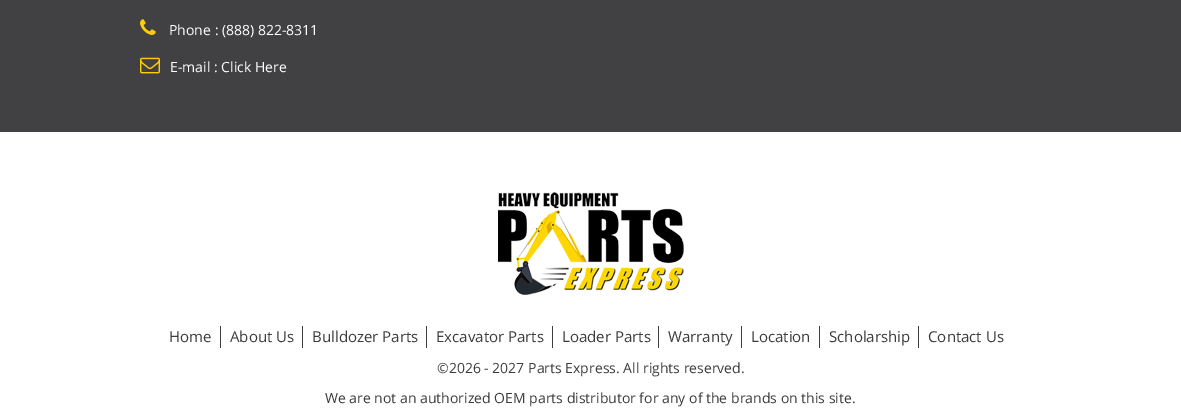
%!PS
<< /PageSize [1181 418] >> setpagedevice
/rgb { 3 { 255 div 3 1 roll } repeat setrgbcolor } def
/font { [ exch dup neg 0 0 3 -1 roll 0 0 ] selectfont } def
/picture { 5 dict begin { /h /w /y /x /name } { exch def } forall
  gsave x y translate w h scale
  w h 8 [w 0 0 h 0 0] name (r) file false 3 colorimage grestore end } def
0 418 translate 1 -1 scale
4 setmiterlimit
255 255 255 rgb
0 0 1181 418 rectfill
65 65 68 rgb
0 0 1181 132 rectfill
(img/1.rgb) 140 19 16 16 picture
(img/2.rgb) 140 57 20 17 picture
(img/3.rgb) 498 192 186 103 picture
[
  [220 326 1 22 61 61 61]
  [302 326 1 22 61 61 61]
  [426 326 1 22 61 61 61]
  [552 326 1 22 61 61 61]
  [658 326 1 22 61 61 61]
  [741 326 1 22 61 61 61]
  [819 326 1 22 61 61 61]
  [918 326 1 22 61 61 61]
] { aload pop rgb rectfill } forall
/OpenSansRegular-Regular 14 font
255 255 255 rgb
169 35 moveto (Phone : \(888\) 822-8311) show
170 72 moveto (E-mail : Click Here) show
/OpenSansRegular-Regular 15 font
61 61 61 rgb
[
  [(Home) 169 342]
  [(About Us) 230 342]
  [(Bulldozer Parts) 312 342]
  [(Excavator Parts) 436 342]
  [(Loader Parts) 562 342]
  [(Warranty) 668 342]
  [(Location) 751 342]
  [(Scholarship) 829 342]
  [(Contact Us) 928 342]
] { aload pop moveto show } forall
/OpenSansRegular-Regular 14 font
437 373 moveto (©2026 - 2027 Parts Express. All rights reserved.) show
325 403 moveto (We are not an authorized OEM parts distributor for any of the brands on this site.) show
showpage
